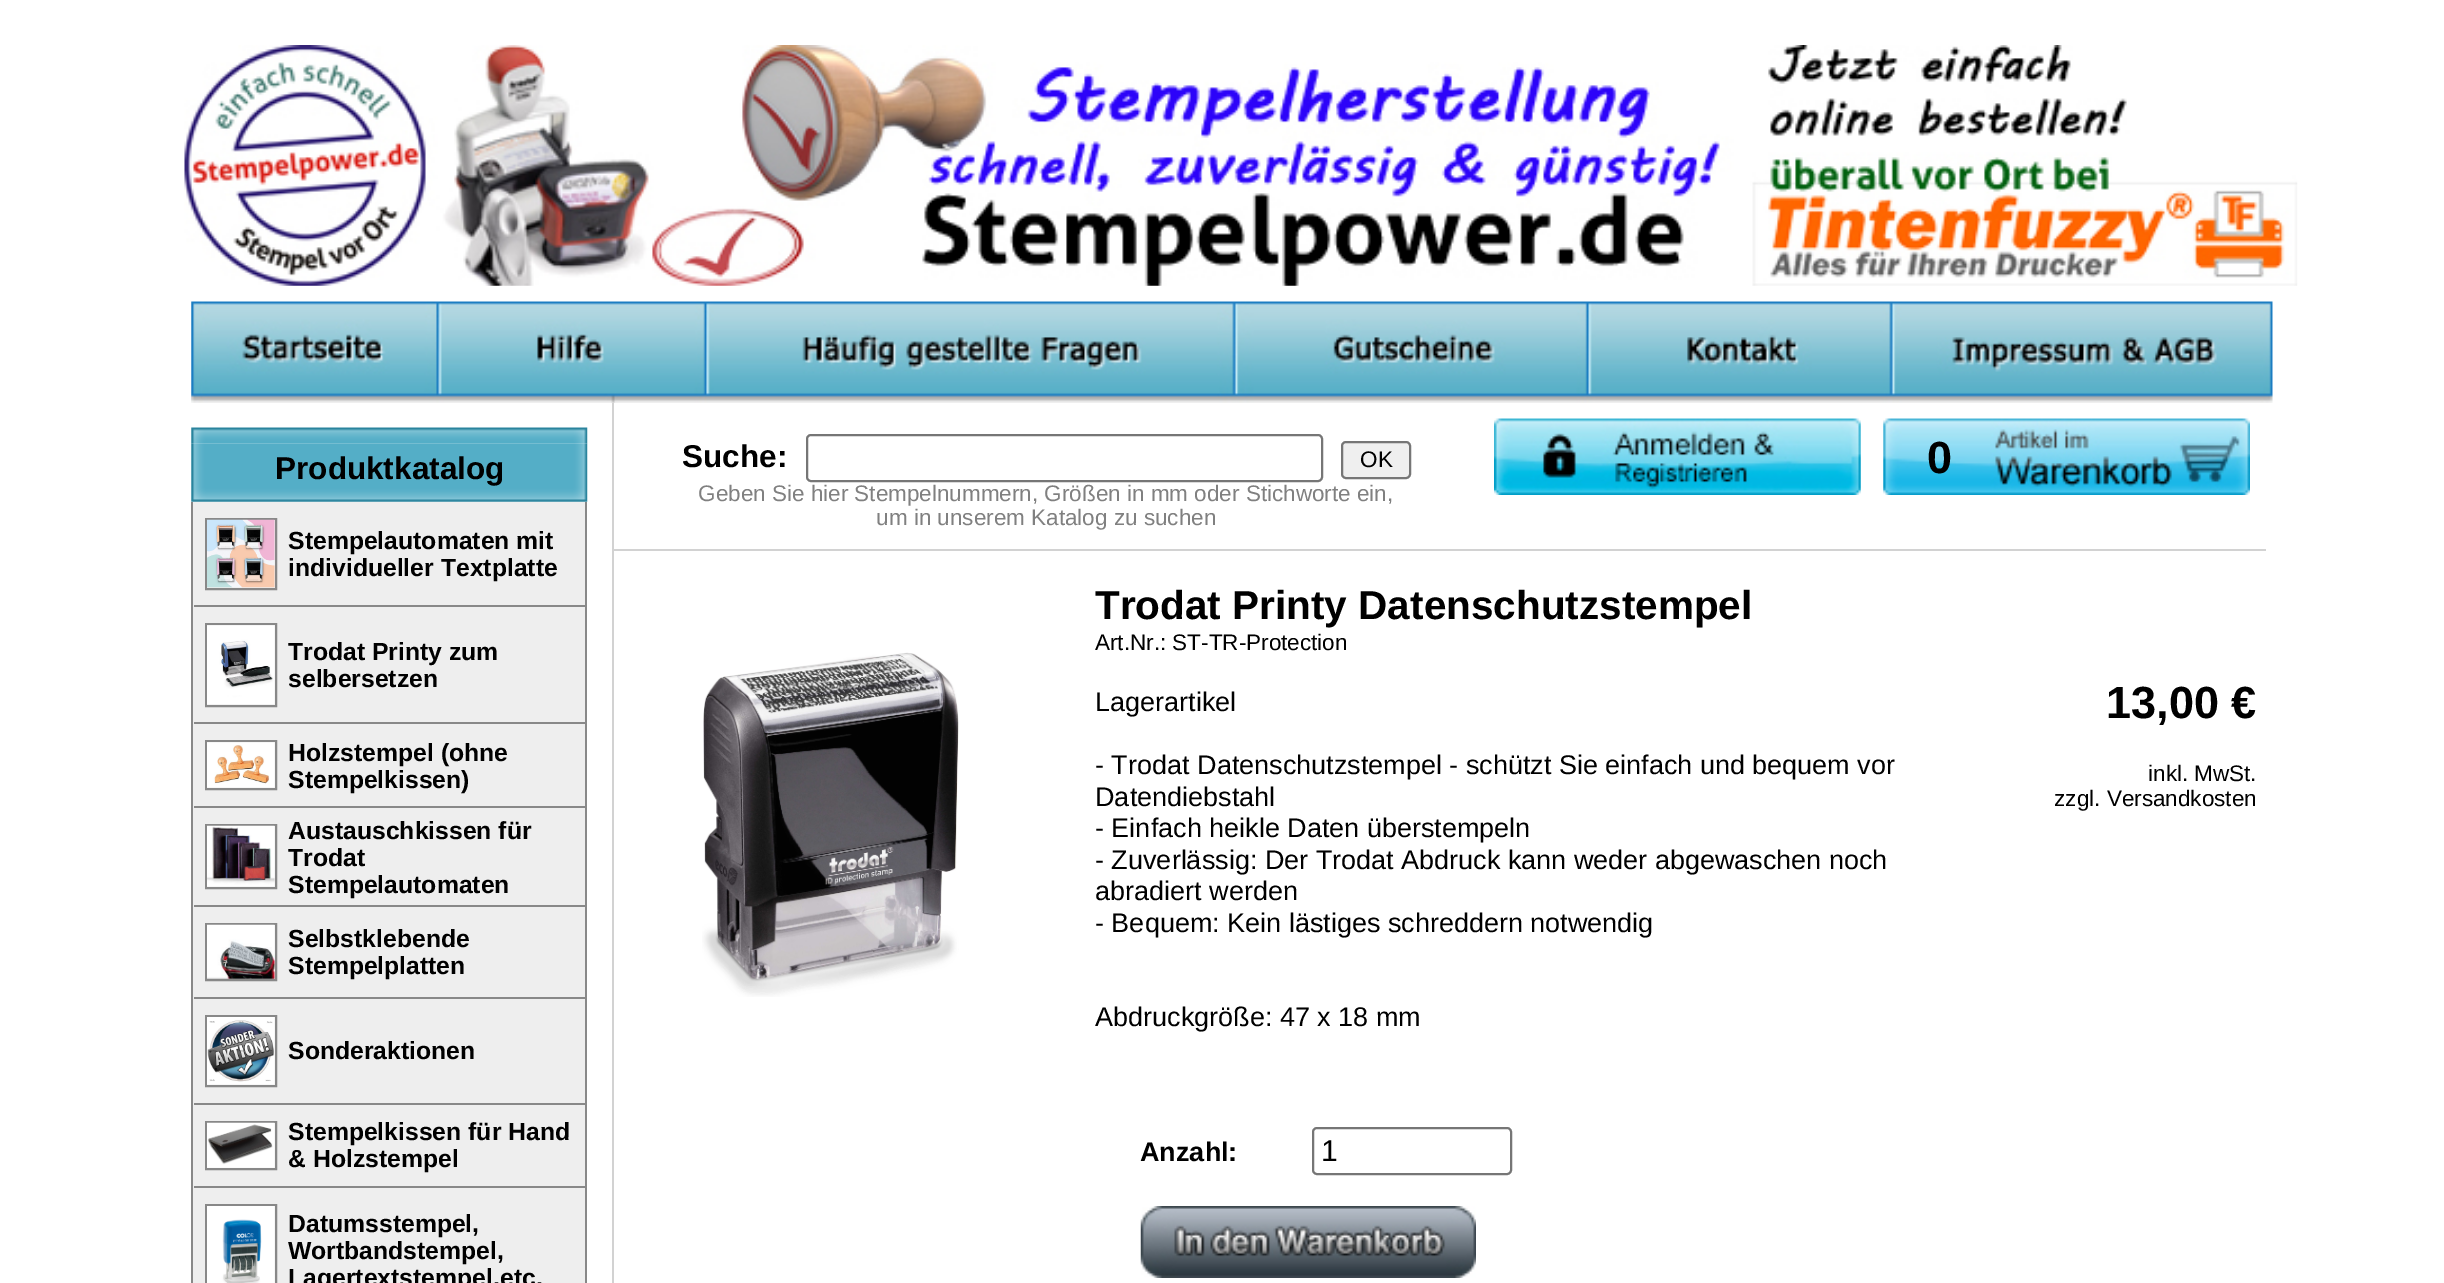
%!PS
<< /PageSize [2444 1283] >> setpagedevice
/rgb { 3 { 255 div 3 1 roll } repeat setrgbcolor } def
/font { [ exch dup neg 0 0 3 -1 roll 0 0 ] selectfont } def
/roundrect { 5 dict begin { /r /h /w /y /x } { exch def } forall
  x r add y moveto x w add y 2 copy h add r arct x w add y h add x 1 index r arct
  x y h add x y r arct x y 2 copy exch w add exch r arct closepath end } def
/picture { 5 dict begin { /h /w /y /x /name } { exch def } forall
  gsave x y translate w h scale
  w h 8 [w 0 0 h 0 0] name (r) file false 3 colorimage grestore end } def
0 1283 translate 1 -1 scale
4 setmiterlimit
255 255 255 rgb
0 0 2444 1283 rectfill
(img/1.rgb) 184 45 2114 241 picture
(img/2.rgb) 191 301 2082 102 picture
210 210 210 rgb
612 403 2 880 rectfill
(img/4.rgb) 191 443 397 43 picture
(img/3.rgb) 191 427 397 17 picture
(img/5.rgb) 191 486 397 16 picture
[
  [193 502 392 781 238 238 238]
  [585 502 2 781 136 136 136]
  [191 502 2 781 136 136 136]
  [194 605 391 2 136 136 136]
] { aload pop rgb rectfill } forall
2 setlinewidth
206 519 70 70 rectstroke
(img/6.rgb) 207 519 68 69 picture
194 722 391 2 rectfill
206 624 70 82 rectstroke
(img/7.rgb) 207 625 68 80 picture
194 806 391 2 rectfill
206 741 70 48 rectstroke
(img/8.rgb) 207 742 68 46 picture
194 905 391 2 rectfill
206 825 70 63 rectstroke
(img/9.rgb) 207 825 68 62 picture
194 997 391 2 rectfill
206 924 70 56 rectstroke
(img/10.rgb) 207 924 68 55 picture
194 1103 391 2 rectfill
206 1016 70 70 rectstroke
(img/11.rgb) 207 1017 68 68 picture
194 1186 391 2 rectfill
206 1122 70 47 rectstroke
(img/12.rgb) 207 1122 68 46 picture
206 1205 70 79 rectstroke
(img/13.rgb) 207 1206 68 77 picture
210 210 210 rgb
614 549 1652 2 rectfill
118 118 118 rgb
807 435 515 46 4 roundrect stroke
239 239 239 rgb
1342 442 68 36 4 roundrect gsave fill grestore
118 118 118 rgb
stroke
(img/14.rgb) 1494 418 367 77 picture
(img/15.rgb) 1883 418 367 77 picture
(img/16.rgb) 702 652 257 345 picture
1313 1128 198 46 4 roundrect stroke
(img/17.rgb) 1140 1206 336 72 picture
/LiberationSans-Bold 31.5 font
0 0 0 rgb
275 479 moveto (Produktkatalog) show
/LiberationSans-Bold 24.75 font
[
  [(Stempelautomaten mit) 288 549]
  [(individueller Textplatte) 288 576]
  [(Trodat Printy zum) 288 660]
  [(selbersetzen) 288 687]
  [(Holzstempel \(ohne) 288 761]
  [(Stempelkissen\)) 288 788]
  [(Austauschkissen für) 288 839]
  [(Trodat) 288 866]
  [(Stempelautomaten) 288 893]
  [(Selbstklebende) 288 947]
  [(Stempelplatten) 288 974]
  [(Sonderaktionen) 288 1059]
  [(Stempelkissen für Hand) 288 1140]
  [(& Holzstempel) 288 1167]
  [(Datumsstempel,) 288 1232]
  [(Wortbandstempel,) 288 1259]
  [(Lagertextstempel,etc.) 288 1286]
] { aload pop moveto show } forall
/LiberationSans-Bold 31.5 font
682 467 moveto (Suche:) show
/LiberationSans-Regular 22.5 font
1360 467 moveto (OK) show
128 128 128 rgb
698 501 moveto (Geben Sie hier Stempelnummern, Größen in mm oder Stichworte ein,) show
876 525 moveto (um in unserem Katalog zu suchen) show
/LiberationSans-Bold 45 font
0 0 0 rgb
1927 473 moveto (0) show
/LiberationSans-Bold 40.5 font
1095 619 moveto (Trodat Printy Datenschutzstempel) show
/LiberationSans-Regular 22.5 font
1095 650 moveto (Art.Nr.: ST-TR-Protection) show
/LiberationSans-Regular 27 font
[
  [(Lagerartikel) 1095 711]
  [(- Trodat Datenschutzstempel - schützt Sie einfach und bequem vor) 1095 774]
  [(Datendiebstahl) 1095 806]
  [(- Einfach heikle Daten überstempeln) 1095 837]
  [(- Zuverlässig: Der Trodat Abdruck kann weder abgewaschen noch) 1095 869]
  [(abradiert werden) 1095 900]
  [(- Bequem: Kein lästiges schreddern notwendig) 1095 932]
  [(Abdruckgröße: 47 x 18 mm) 1095 1026]
] { aload pop moveto show } forall
/LiberationSans-Bold 27 font
1140 1161 moveto (Anzahl:) show
/LiberationSans-Regular 30 font
1321 1161 moveto (1) show
/LiberationSans-Bold 45 font
2106 718 moveto (13,00 €) show
/LiberationSans-Regular 22.5 font
2148 781 moveto (inkl. MwSt.) show
2054 806 moveto (zzgl. Versandkosten) show
showpage
